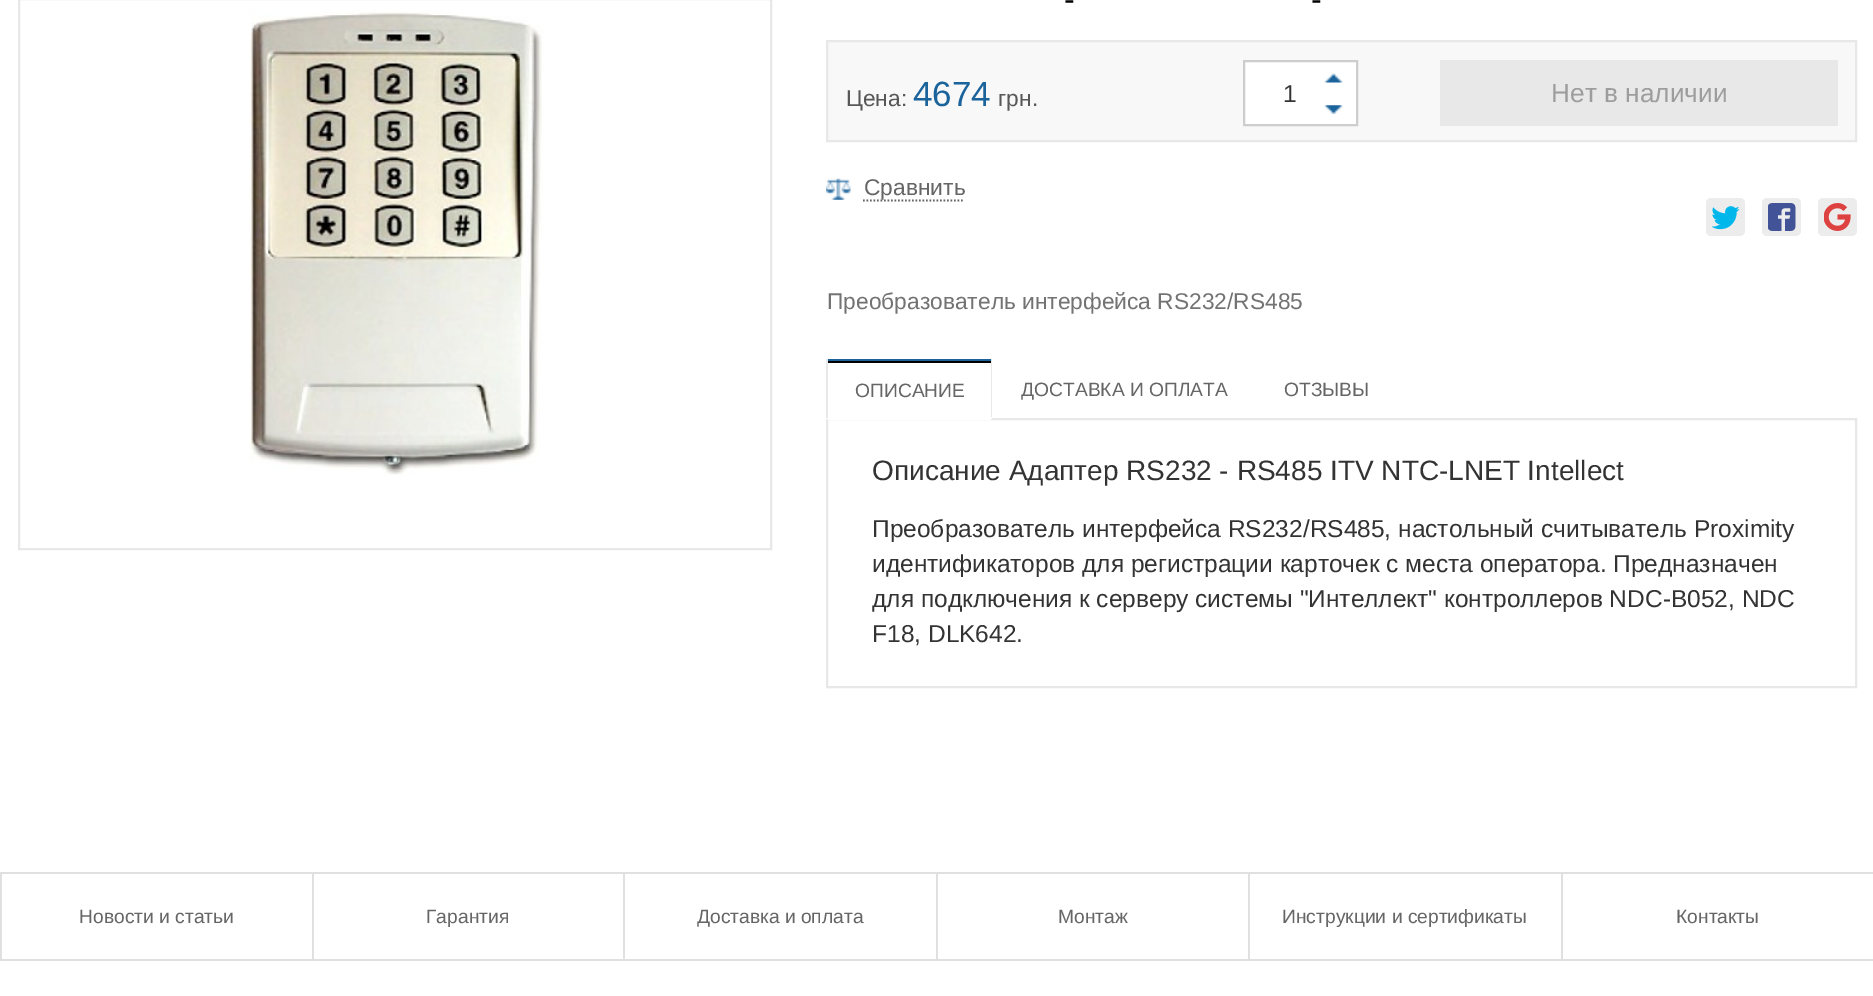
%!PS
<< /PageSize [1873 996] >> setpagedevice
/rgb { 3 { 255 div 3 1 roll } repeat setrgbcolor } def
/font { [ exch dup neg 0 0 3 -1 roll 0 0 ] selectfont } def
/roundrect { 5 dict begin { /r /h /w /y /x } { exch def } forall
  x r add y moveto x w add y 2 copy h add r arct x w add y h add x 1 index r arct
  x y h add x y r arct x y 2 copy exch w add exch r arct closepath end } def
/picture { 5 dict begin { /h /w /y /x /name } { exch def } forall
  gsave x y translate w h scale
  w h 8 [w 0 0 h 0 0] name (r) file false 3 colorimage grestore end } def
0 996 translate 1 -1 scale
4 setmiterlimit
255 255 255 rgb
0 0 1873 996 rectfill
232 232 232 rgb
2 setlinewidth
19 -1 752 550 rectstroke
(img/1.rgb) 250 10 293 465 picture
248 248 248 rgb
827 41 moveto 1856 41 lineto 1856 141 lineto 827 141 lineto closepath gsave fill grestore
232 232 232 rgb
stroke
255 255 255 rgb
1244 61 moveto 1357 61 lineto 1357 125 lineto 1244 125 lineto closepath gsave fill grestore
205 205 205 rgb
stroke
(img/2.rgb) 1324 73 19 10 picture
(img/3.rgb) 1324 105 19 9 picture
232 232 232 rgb
1440 60 398 66 rectfill
(img/4.rgb) 826 178 25 22 picture
102 102 102 rgb
1.8 setlinewidth
[1.75 1.75] 0 setdash
863 200.5 moveto 964 200.5 lineto stroke
236 236 236 rgb
1706 198 39 38 5 roundrect fill
(img/5.rgb) 1712 206 28 24 picture
1762 198 39 38 5 roundrect fill
(img/6.rgb) 1768 203 28 28 picture
1818 198 39 38 5 roundrect fill
(img/7.rgb) 1824 203 27 28 picture
27 99 155 rgb
826 359 166 2 rectfill
232 232 232 rgb
991 359 1 59 rectfill
2 setlinewidth
[] 0 setdash
827 419 1029 268 rectstroke
[
  [826 417 166 2 255 255 255]
  [826 359 2 59 232 232 232]
  [828 361 163 2 0 0 0]
  [828 419 163 1 255 255 255]
  [0 872 1873 2 224 224 224]
  [312 873 2 88 224 224 224]
  [0 959 313 2 224 224 224]
  [0 873 2 88 224 224 224]
  [623 873 2 88 224 224 224]
  [313 959 312 2 224 224 224]
  [936 873 2 88 224 224 224]
  [625 959 313 2 224 224 224]
  [1248 873 2 88 224 224 224]
  [938 959 312 2 224 224 224]
  [1561 873 2 88 224 224 224]
  [1250 959 623 2 224 224 224]
] { aload pop rgb rectfill } forall
/LiberationSans-Regular 32 font
0 0 0 rgb
1064 10 moveto (-) show
1311 10 moveto (-) show
/LiberationSans-Regular 22.75 font
88 88 88 rgb
846 106 moveto (Цена:) show
/LiberationSans-Regular 35 font
27 99 155 rgb
913 106 moveto (4674) show
/LiberationSans-Regular 22.75 font
88 88 88 rgb
998 106 moveto (грн.) show
/LiberationSans-Regular 24.5 font
51 51 51 rgb
1283 102 moveto (1) show
/LiberationSans-Regular 26.25 font
157 157 157 rgb
1551 102 moveto (Нет в наличии) show
/LiberationSans-Regular 22.75 font
102 102 102 rgb
864 195 moveto (Сравнить) show
115 115 115 rgb
827 309 moveto (Преобразователь интерфейса RS232/RS485) show
/LiberationSans-Regular 19.25 font
102 102 102 rgb
[
  [(ОПИСАНИЕ) 855 397]
  [(ДОСТАВКА И ОПЛАТА) 1021 396]
  [(ОТЗЫВЫ) 1284 396]
] { aload pop moveto show } forall
/LiberationSans-Regular 28 font
51 51 51 rgb
872 480 moveto (Описание Адаптер RS232 - RS485 ITV NTC-LNET Intellect) show
/LiberationSans-Regular 24.5 font
[
  [(Преобразователь интерфейса RS232/RS485, настольный считыватель Proximity) 872 537]
  [(идентификаторов для регистрации карточек с места оператора. Предназначен) 872 572]
  [(для подключения к серверу системы "Интеллект" контроллеров NDC-B052, NDC) 872 607]
  [(F18, DLK642.) 872 642]
] { aload pop moveto show } forall
/LiberationSans-Regular 19.25 font
102 102 102 rgb
[
  [(Новости и статьи) 79 923]
  [(Гарантия) 426 923]
  [(Доставка и оплата) 697 923]
  [(Монтаж) 1058 923]
  [(Инструкции и сертификаты) 1282 923]
  [(Контакты) 1676 923]
] { aload pop moveto show } forall
showpage
